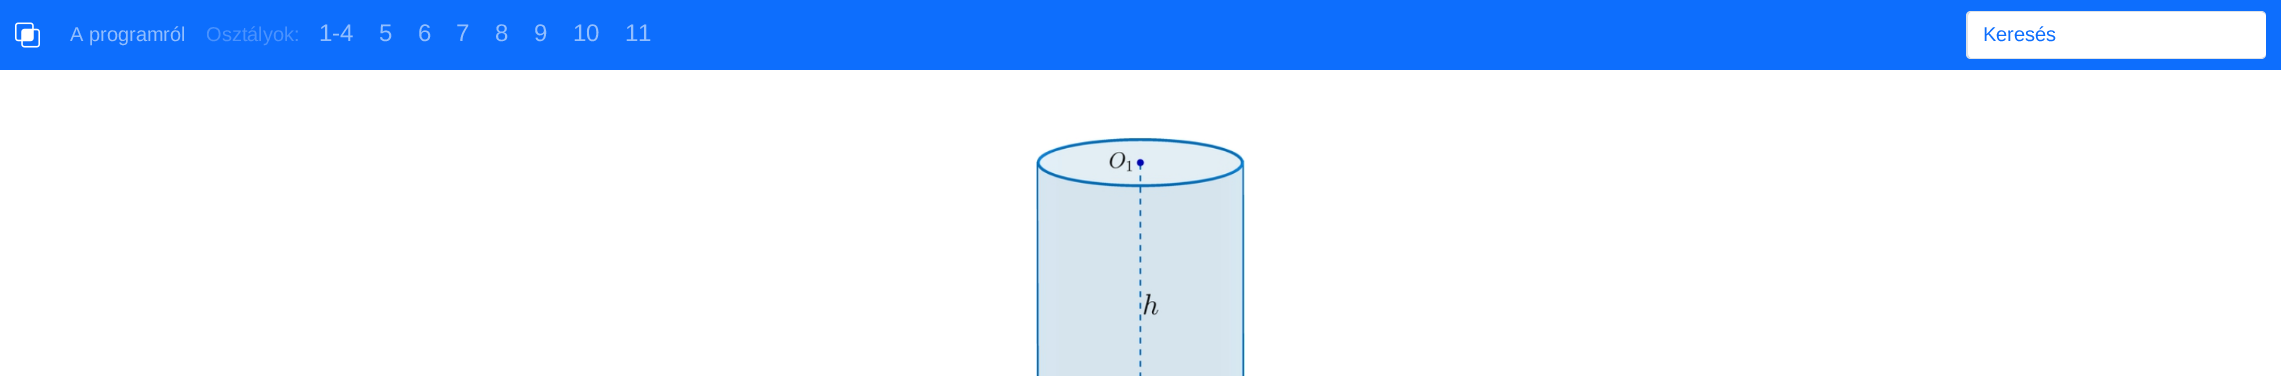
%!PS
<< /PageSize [2281 376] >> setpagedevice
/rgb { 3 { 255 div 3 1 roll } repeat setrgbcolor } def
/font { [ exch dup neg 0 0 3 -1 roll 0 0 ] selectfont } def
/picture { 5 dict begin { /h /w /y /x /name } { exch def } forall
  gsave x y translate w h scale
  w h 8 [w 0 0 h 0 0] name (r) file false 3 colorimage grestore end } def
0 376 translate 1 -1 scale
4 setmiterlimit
255 255 255 rgb
0 0 2281 376 rectfill
13 110 253 rgb
0 0 2281 70 rectfill
(img/1.rgb) 15 22 25 26 picture
255 255 255 rgb
1971 12 moveto 2261 12 lineto 2264 12 2266 14 2266 16 curveto 2266 54 lineto 2266 56 2264 58 2261 58 curveto 1971 58 lineto 1969 58 1968 56 1968 54 curveto 1968 16 lineto 1968 14 1969 12 1971 12 curveto closepath fill
222 226 230 rgb
1971 11 moveto 2261 11 lineto 2264 11 2266 13 2266 16 curveto 2266 54 lineto 2266 57 2264 59 2261 59 curveto 1971 59 lineto 1968 59 1966 57 1966 54 curveto 1966 16 lineto 1966 13 1968 11 1971 11 curveto closepath 1971 12 moveto 2261 12 lineto 2264 12 2266 14 2266 16 curveto 2266 54 lineto 2266 56 2264 58 2261 58 curveto 1971 58 lineto 1969 58 1968 56 1968 54 curveto 1968 16 lineto 1968 14 1969 12 1971 12 curveto closepath eofill
(img/2.rgb) 1036 137 209 239 picture
/LiberationSans-Regular 20 font
146 190 254 rgb
70 41 moveto (A programról) show
74 146 254 rgb
206 41 moveto (Osztályok:) show
/LiberationSans-Regular 24 font
146 190 254 rgb
[
  [(1-4) 319 41]
  [(5) 379 41]
  [(6) 418 41]
  [(7) 456 41]
  [(8) 495 41]
  [(9) 534 41]
  [(10) 573 41]
  [(11) 625 41]
] { aload pop moveto show } forall
/LiberationSans-Regular 20 font
13 110 253 rgb
1983 41 moveto (Keresés) show
showpage
